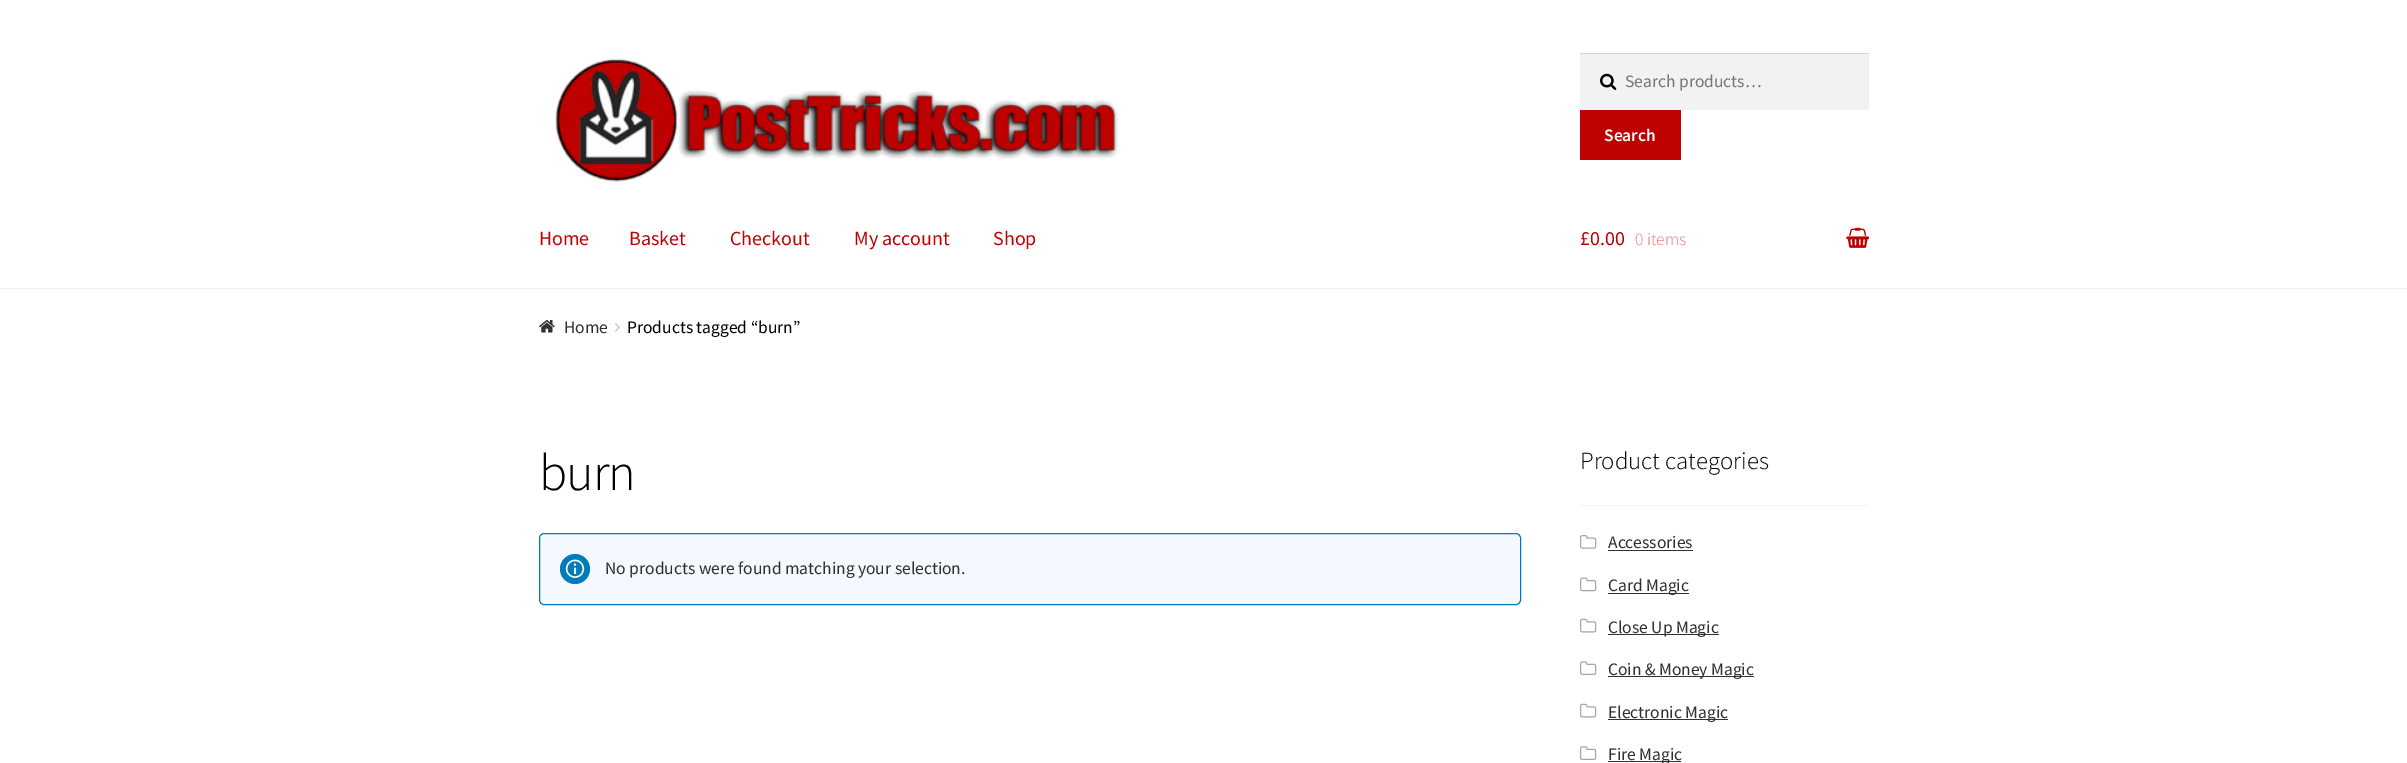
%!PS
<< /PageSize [2407 763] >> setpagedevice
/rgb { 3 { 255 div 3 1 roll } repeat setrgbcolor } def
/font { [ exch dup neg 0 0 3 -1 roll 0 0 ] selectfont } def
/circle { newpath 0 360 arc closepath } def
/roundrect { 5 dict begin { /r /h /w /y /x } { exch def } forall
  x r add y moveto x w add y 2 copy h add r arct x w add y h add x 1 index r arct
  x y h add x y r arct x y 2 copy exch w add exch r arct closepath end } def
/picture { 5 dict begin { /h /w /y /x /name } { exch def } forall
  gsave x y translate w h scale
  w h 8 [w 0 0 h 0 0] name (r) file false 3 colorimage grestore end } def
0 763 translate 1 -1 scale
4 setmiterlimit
255 255 255 rgb
0 0 2407 763 rectfill
240 240 240 rgb
0 288 2407 1 rectfill
(img/1.rgb) 555 58 565 125 picture
242 242 242 rgb
1580 54 289 56 rectfill
(img/2.rgb) 1600 73 17 17 picture
212 212 212 rgb
1580 53 289 1 rectfill
190 1 1 rgb
1580 110 101 50 rectfill
(img/3.rgb) 1846 227 24 21 picture
(img/4.rgb) 539 320 16 13 picture
(img/5.rgb) 615 323 5 9 picture
244 248 255 rgb
539.5 533.5 981 71 4.5 roundrect gsave fill grestore
0 124 186 rgb
stroke
575 569 15 circle fill
(img/6.rgb) 565 559 20 19 picture
242 242 242 rgb
1580 505 289 1 rectfill
(img/7.rgb) 1580 535 17 14 picture
50 50 50 rgb
1608 550 85 1 rectfill
(img/8.rgb) 1580 577 17 15 picture
1608 593 81 1 rectfill
(img/9.rgb) 1580 618 17 15 picture
1608 634 111 1 rectfill
(img/10.rgb) 1580 661 17 14 picture
1608 676 146 1 rectfill
(img/9.rgb) 1580 703 17 15 picture
1608 719 120 1 rectfill
(img/10.rgb) 1580 746 17 14 picture
1608 761 73 1 rectfill
/SourceSansPro-Regular 17.5 font
117 117 117 rgb
1625 87 moveto (Search products…) show
/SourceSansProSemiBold-SemiBold 17.5 font
255 255 255 rgb
1604 141 moveto (Search) show
/SourceSansPro-Regular 20 font
190 1 1 rgb
[
  [(Home) 539 245]
  [(Basket) 629 245]
  [(Checkout) 730 245]
  [(My account) 854 245]
  [(Shop) 993 245]
  [(£0.00) 1580 245]
] { aload pop moveto show } forall
/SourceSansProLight-Light 17.5 font
223 128 128 rgb
1635 245 moveto (0 items) show
/SourceSansPro-Regular 17.5 font
47 47 47 rgb
564 333 moveto (Home) show
0 0 0 rgb
627 333 moveto (Products tagged “burn”) show
/SourceSansProLight-Light 52 font
539 490 moveto -1 0 (burn) ashow
/SourceSansPro-Regular 17.5 font
47 47 47 rgb
605 574 moveto (No products were found matching your selection.) show
/SourceSansProLight-Light 24.75 font
0 0 0 rgb
1580 469 moveto (Product categories) show
/SourceSansPro-Regular 17.5 font
47 47 47 rgb
[
  [(Accessories) 1608 548]
  [(Card Magic) 1608 591]
  [(Close Up Magic) 1608 633]
  [(Coin & Money Magic) 1608 675]
  [(Electronic Magic) 1608 718]
  [(Fire Magic) 1608 760]
] { aload pop moveto show } forall
showpage
